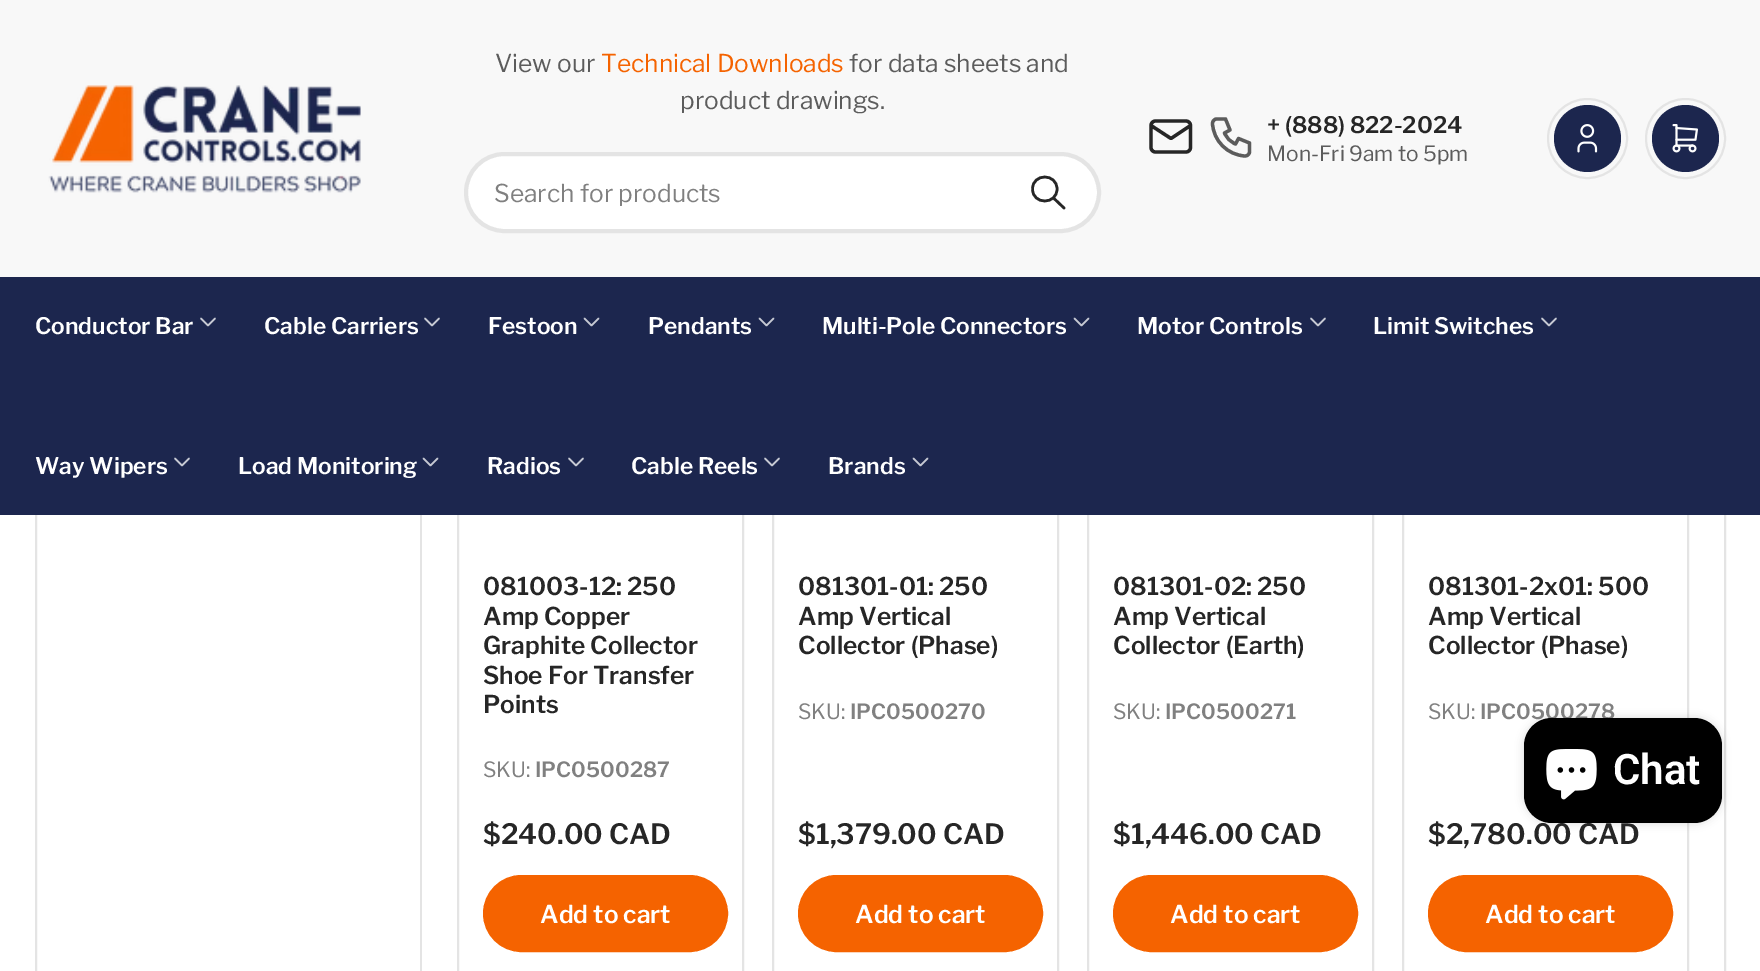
%!PS
<< /PageSize [1760 971] /PageUsesTransparency true >> setpagedevice
/rgb { 3 { 255 div 3 1 roll } repeat setrgbcolor } def
/font { [ exch dup neg 0 0 3 -1 roll 0 0 ] selectfont } def
/alpha { dup .setfillconstantalpha .setstrokeconstantalpha } def
/circle { newpath 0 360 arc closepath } def
/roundrect { 5 dict begin { /r /h /w /y /x } { exch def } forall
  x r add y moveto x w add y 2 copy h add r arct x w add y h add x 1 index r arct
  x y h add x y r arct x y 2 copy exch w add exch r arct closepath end } def
/shadow { 12 dict begin { /a /b /q /h /w /y /x } { exch def } forall gsave /was 0 def
  9 -2 -9 { dup b mul 4 div /e exch def 1 sub .425 mul 2.718 exch exp 1 add a .99 .min exch div /now exch def
    1 1 now sub 1 was sub div sub alpha /was now def
    w h .min e 2 mul add 0 gt { x e sub y e sub w e 2 mul add h e 2 mul add
      q e add b .6 mul add w h .min 2 div e add .min 0 .max roundrect fill } if } for grestore end } def
/picture { 5 dict begin { /h /w /y /x /name } { exch def } forall
  gsave x y translate w h scale
  w h 8 [w 0 0 h 0 0] name (r) file false 3 colorimage grestore end } def
0 .pushpdf14devicefilter
0 971 translate 1 -1 scale
4 setmiterlimit
255 255 255 rgb
0 0 1760 971 rectfill
228 228 228 rgb
2 setlinewidth
36 -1 1689 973 rectstroke
458 162 285 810 rectstroke
773 162 285 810 rectstroke
1088 162 285 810 rectstroke
1403 162 285 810 rectstroke
248 248 248 rgb
0 0 1760 277 rectfill
(img/1.rgb) 48 85 313 108 picture
255 255 255 rgb
466 154 633 77 38.5 roundrect gsave fill grestore
228 228 228 rgb
4 setlinewidth
stroke
38 38 38 rgb
2.6 setlinewidth
1 setlinecap
1 setlinejoin
1032.5 189 moveto 1032.5 205 1057 205 1057 189 curveto 1057 173 1032.5 173 1032.5 189 curveto 1064 208 moveto 1053.5 198 lineto stroke
3.3 setlinewidth
1151 125.5 moveto 1151 123 1153 121 1155.5 121 curveto 1186 121 lineto 1188.5 121 1190.5 123 1190.5 125.5 curveto 1190.5 147.5 lineto 1190.5 150 1188.5 152 1186 152 curveto 1155.5 152 lineto 1153 152 1151 150 1151 147.5 curveto closepath 1151 125.5 moveto 1171 138.5 lineto 1190.5 125.5 lineto stroke
92 92 92 rgb
1216.5 119 moveto 1225.5 119 lineto 1230 130 lineto 1224.5 133 lineto 1226.5 138 1230.5 142 1235.5 144 curveto 1238.5 138.5 lineto 1249.5 143 lineto 1249.5 152 lineto 1249.5 154 1247.5 156 1245 156 curveto 1227.5 155 1213.5 141 1212.5 123.5 curveto 1212.5 121 1214.5 119 1216.5 119 curveto stroke
228 228 228 rgb
2 setlinewidth
0 setlinecap
0 setlinejoin
1587.5 138.5 39.5 circle stroke
28 38 78 rgb
1587.5 138.5 33.5 circle fill
(img/2.rgb) 1577 124 21 29 picture
228 228 228 rgb
1685.5 138.5 39.5 circle stroke
28 38 78 rgb
1685.5 138.5 33.5 circle fill
(img/3.rgb) 1672 124 26 29 picture
0 277 1760 238 rectfill
198 201 211 rgb
1.7 setlinewidth
1 setlinecap
1 setlinejoin
201 318.5 moveto 208 325.5 lineto 215 318.5 lineto stroke
425 318.5 moveto 432 325.5 lineto 439 318.5 lineto stroke
584.5 318.5 moveto 591.5 325.5 lineto 598.5 318.5 lineto stroke
759.5 318.5 moveto 766.5 325.5 lineto 773.5 318.5 lineto stroke
1074.5 318.5 moveto 1081.5 325.5 lineto 1088.5 318.5 lineto stroke
1311 318.5 moveto 1318 325.5 lineto 1325 318.5 lineto stroke
1542 318.5 moveto 1549 325.5 lineto 1556 318.5 lineto stroke
175 458.5 moveto 182 465.5 lineto 189 458.5 lineto stroke
423.5 458.5 moveto 430.5 465.5 lineto 437.5 458.5 lineto stroke
569 458.5 moveto 576 465.5 lineto 583 458.5 lineto stroke
765 458.5 moveto 772 465.5 lineto 779 458.5 lineto stroke
913.5 458.5 moveto 920.5 465.5 lineto 927.5 458.5 lineto stroke
228 228 228 rgb
420 515 2 456 rectfill
245 99 0 rgb
484 876 243 75 37.5 roundrect gsave fill grestore
2 setlinewidth
0 setlinecap
0 setlinejoin
stroke
799 876 243 75 37.5 roundrect gsave fill grestore
stroke
1114 876 243 75 37.5 roundrect gsave fill grestore
stroke
1429 876 243 75 37.5 roundrect gsave fill grestore
stroke
0 0 0 rgb
1524 718 198 105 28 4.5 0.15 shadow
/LibreFranklin-Regular 24.5 font
92 92 92 rgb
495 72 moveto (View our) show
245 99 0 rgb
601 72 moveto (Technical Downloads) show
92 92 92 rgb
849 72 moveto (for data sheets and) show
680 109 moveto (product drawings.) show
128 128 128 rgb
494 202 moveto (Search for products) show
/LibreFranklin-SemiBold 22.75 font
38 38 38 rgb
1267 133 moveto (+ \(888\) 822-2024) show
/LibreFranklin-Regular 21 font
92 92 92 rgb
1267 161 moveto (Mon-Fri 9am to 5pm) show
/LibreFranklin-SemiBold 22.75 font
255 255 255 rgb
[
  [(Conductor Bar) 35 334]
  [(Cable Carriers) 264 334]
  [(Festoon) 488 334]
  [(Pendants) 648 334]
  [(Multi-Pole Connectors) 822 334]
  [(Motor Controls) 1137 334]
  [(Limit Switches) 1373 334]
  [(Way Wipers) 35 474]
  [(Load Monitoring) 238 474]
  [(Radios) 487 474]
  [(Cable Reels) 631 474]
  [(Brands) 828 474]
] { aload pop moveto show } forall
/LibreFranklin-SemiBold 24.5 font
38 38 38 rgb
[
  [(081003-12: 250) 483 595]
  [(Amp Copper) 483 625]
  [(Graphite Collector) 483 654]
  [(Shoe For Transfer) 483 684]
  [(Points) 483 713]
] { aload pop moveto show } forall
/LibreFranklin-Regular 21 font
128 128 128 rgb
483 777 moveto (SKU:) show
/LibreFranklin-SemiBold 21 font
535 777 moveto (IPC0500287) show
/LibreFranklin-SemiBold 28 font
38 38 38 rgb
483 844 moveto ($240.00 CAD) show
/LibreFranklin-SemiBold 24.5 font
255 255 255 rgb
540 923 moveto (Add to cart) show
38 38 38 rgb
[
  [(081301-01: 250) 798 595]
  [(Amp Vertical) 798 625]
  [(Collector \(Phase\)) 798 654]
] { aload pop moveto show } forall
/LibreFranklin-Regular 21 font
128 128 128 rgb
798 719 moveto (SKU:) show
/LibreFranklin-SemiBold 21 font
850 719 moveto (IPC0500270) show
/LibreFranklin-SemiBold 28 font
38 38 38 rgb
798 844 moveto ($1,379.00 CAD) show
/LibreFranklin-SemiBold 24.5 font
255 255 255 rgb
855 923 moveto (Add to cart) show
38 38 38 rgb
[
  [(081301-02: 250) 1113 595]
  [(Amp Vertical) 1113 625]
  [(Collector \(Earth\)) 1113 654]
] { aload pop moveto show } forall
/LibreFranklin-Regular 21 font
128 128 128 rgb
1113 719 moveto (SKU:) show
/LibreFranklin-SemiBold 21 font
1165 719 moveto (IPC0500271) show
/LibreFranklin-SemiBold 28 font
38 38 38 rgb
1113 844 moveto ($1,446.00 CAD) show
/LibreFranklin-SemiBold 24.5 font
255 255 255 rgb
1170 923 moveto (Add to cart) show
38 38 38 rgb
[
  [(081301-2x01: 500) 1428 595]
  [(Amp Vertical) 1428 625]
  [(Collector \(Phase\)) 1428 654]
] { aload pop moveto show } forall
/LibreFranklin-Regular 21 font
128 128 128 rgb
1428 719 moveto (SKU:) show
/LibreFranklin-SemiBold 21 font
1480 719 moveto (IPC0500278) show
/LibreFranklin-SemiBold 28 font
38 38 38 rgb
1428 844 moveto ($2,780.00 CAD) show
/LibreFranklin-SemiBold 24.5 font
255 255 255 rgb
1485 923 moveto (Add to cart) show
0 0 0 rgb
1524 718 198 105 28 roundrect fill
(img/4.rgb) 1546 749 51 51 picture
/Roboto-SemiBold 42 font
255 255 255 rgb
1613 784 moveto (Chat) show
.poppdf14devicefilter showpage
